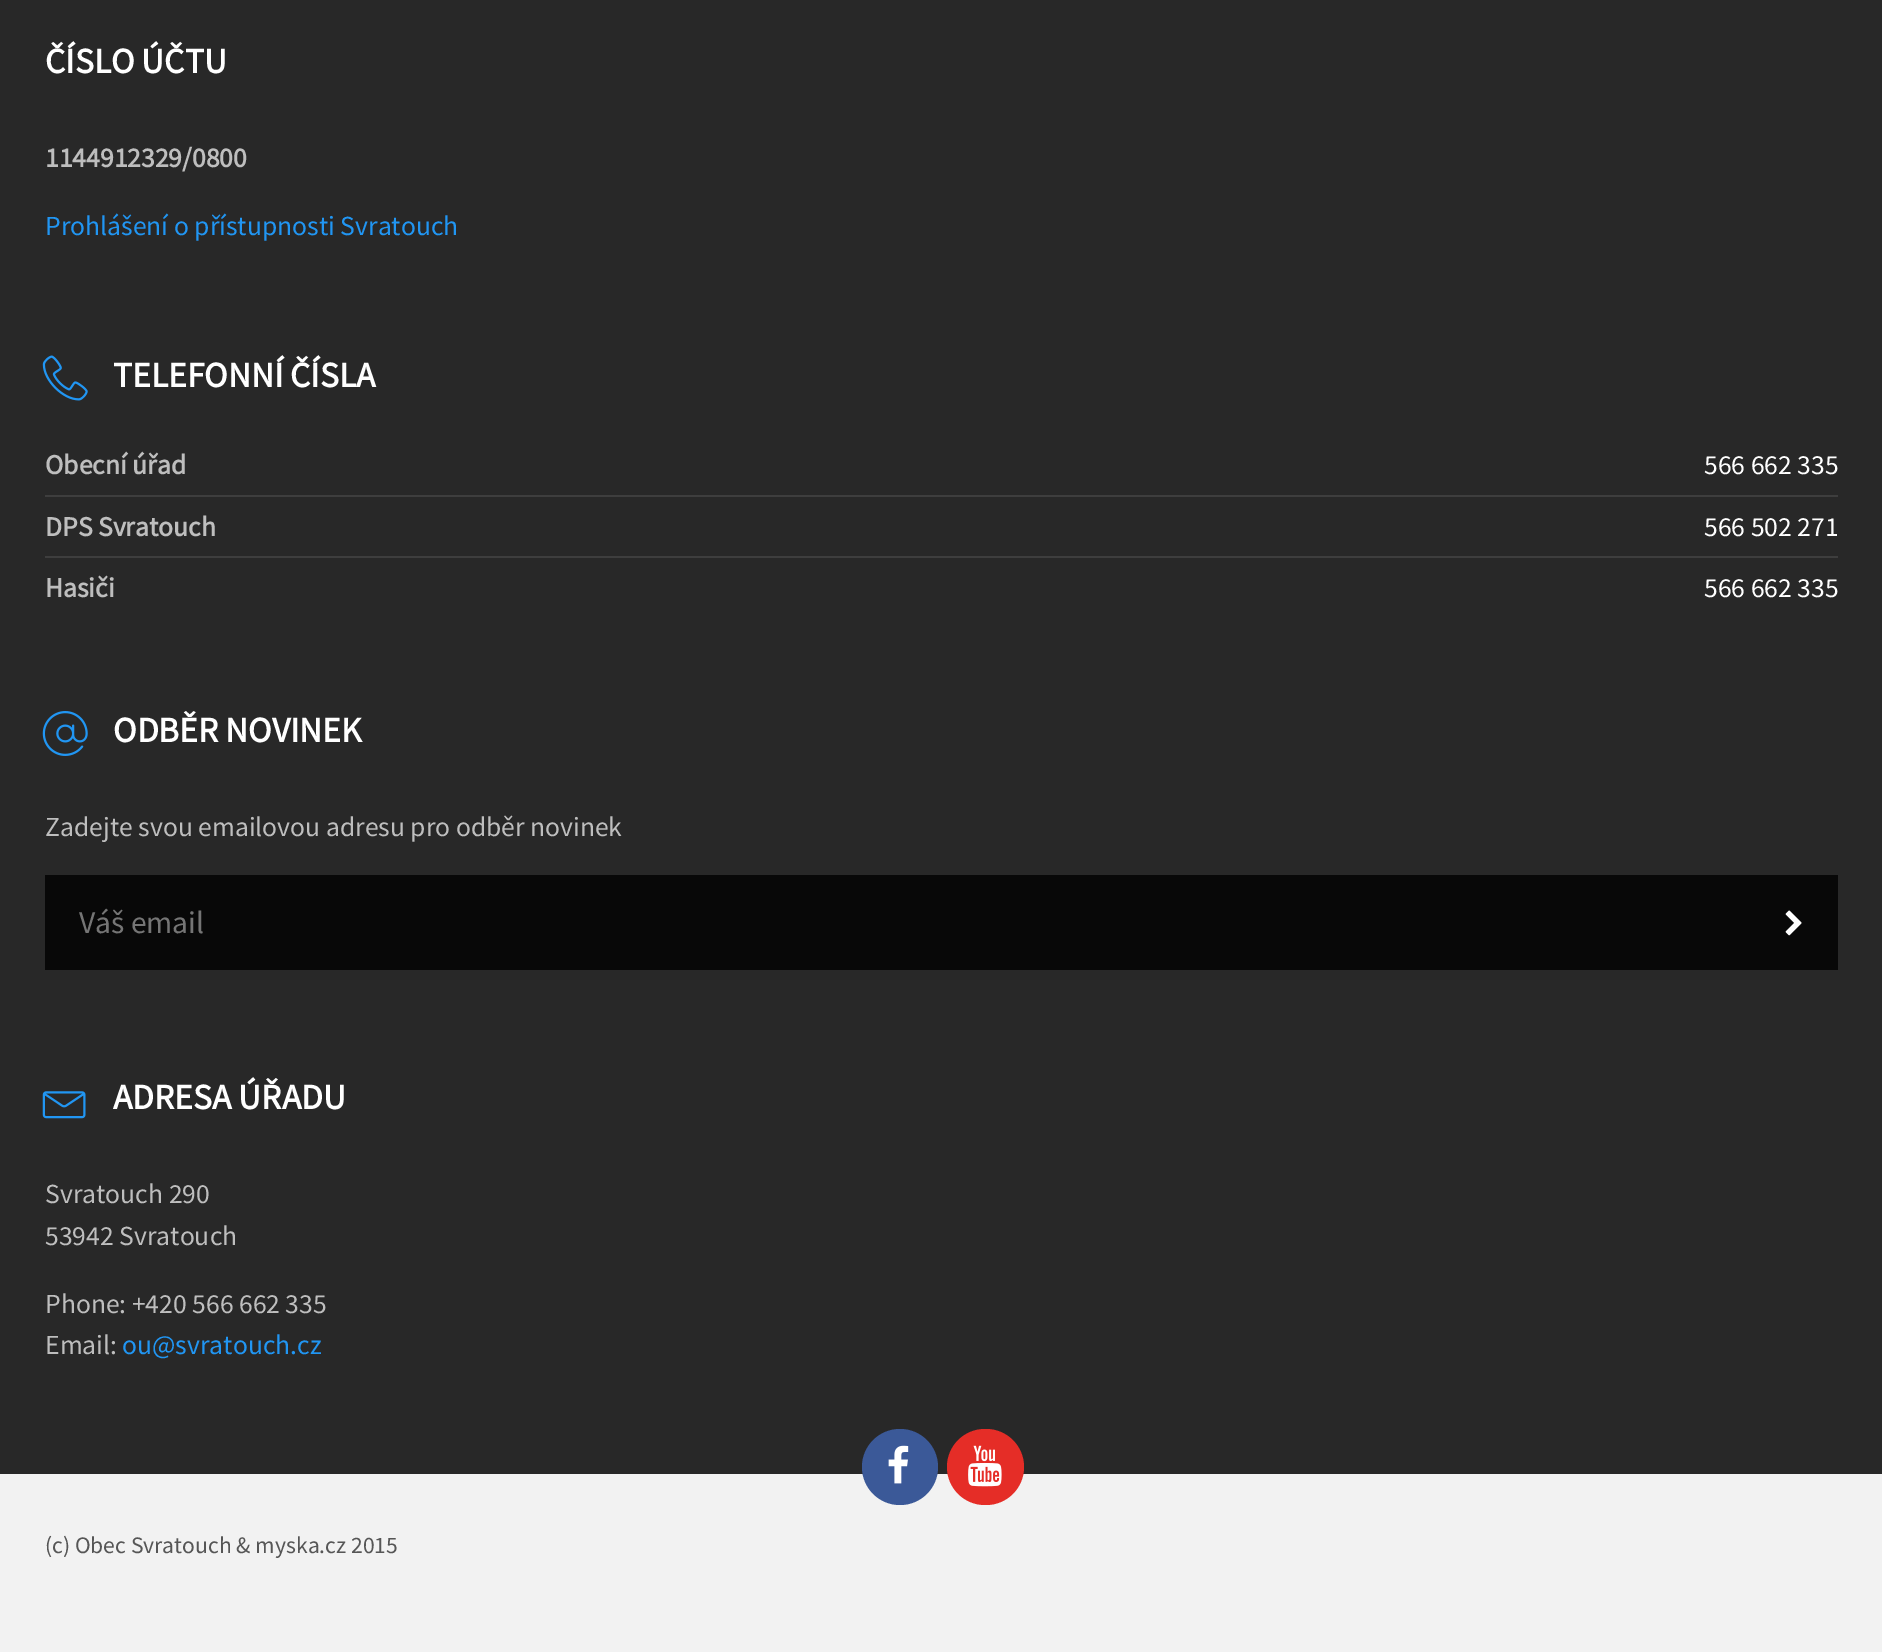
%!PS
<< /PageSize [1882 1652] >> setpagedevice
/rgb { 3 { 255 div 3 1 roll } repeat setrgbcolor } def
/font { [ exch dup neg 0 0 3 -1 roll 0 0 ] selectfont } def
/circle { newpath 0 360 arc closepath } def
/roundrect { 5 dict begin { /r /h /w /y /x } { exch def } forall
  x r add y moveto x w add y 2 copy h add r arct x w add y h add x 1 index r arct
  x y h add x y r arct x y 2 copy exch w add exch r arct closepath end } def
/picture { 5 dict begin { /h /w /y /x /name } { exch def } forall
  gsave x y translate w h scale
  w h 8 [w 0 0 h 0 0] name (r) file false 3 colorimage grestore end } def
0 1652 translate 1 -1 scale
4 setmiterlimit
242 242 242 rgb
0 0 1882 1652 rectfill
40 40 40 rgb
0 0 1882 1474 rectfill
(img/1.rgb) 42 355 46 46 picture
62 62 62 rgb
45 495 1793 2 rectfill
45 556 1793 2 rectfill
(img/2.rgb) 42 711 46 45 picture
8 8 8 rgb
45 875 1793 95 rectfill
(img/3.rgb) 1785 910 17 26 picture
(img/4.rgb) 42 1091 44 28 picture
59 89 152 rgb
900 1467 38 circle fill
(img/5.rgb) 888 1445 21 39 picture
229 45 39 rgb
947 1429 77 76 38 roundrect fill
(img/6.rgb) 968 1445 34 42 picture
/SourceSansPro-Bold 35.5 font
255 255 255 rgb
45 73 moveto (ČÍSLO ÚČTU) show
/SourceSansPro-Bold 27.6 font
190 190 190 rgb
45 167 moveto (1144912329/0800) show
/SourceSansPro-Regular 27.6 font
33 150 243 rgb
45 235 moveto (Prohlášení o přístupnosti Svratouch) show
/SourceSansPro-Bold 35.5 font
255 255 255 rgb
113 387 moveto (TELEFONNÍ ČÍSLA) show
/SourceSansPro-Bold 27.6 font
190 190 190 rgb
45 474 moveto (Obecní úřad) show
/SourceSansPro-Regular 27.6 font
255 255 255 rgb
1704 474 moveto (566 662 335) show
/SourceSansPro-Bold 27.6 font
190 190 190 rgb
45 536 moveto (DPS Svratouch) show
/SourceSansPro-Regular 27.6 font
255 255 255 rgb
1704 536 moveto (566 502 271) show
/SourceSansPro-Bold 27.6 font
190 190 190 rgb
45 597 moveto (Hasiči) show
/SourceSansPro-Regular 27.6 font
255 255 255 rgb
1704 597 moveto (566 662 335) show
/SourceSansPro-Bold 35.5 font
113 742 moveto (ODBĚR NOVINEK) show
/SourceSansPro-Regular 27.6 font
190 190 190 rgb
45 836 moveto (Zadejte svou emailovou adresu pro odběr novinek) show
/SourceSansPro-Regular 31.5 font
117 117 117 rgb
79 933 moveto (Váš email) show
/SourceSansPro-Bold 35.5 font
255 255 255 rgb
113 1109 moveto (ADRESA ÚŘADU) show
/SourceSansPro-Regular 27.6 font
190 190 190 rgb
[
  [(Svratouch 290) 45 1203]
  [(53942 Svratouch) 45 1245]
  [(Phone: +420 566 662 335) 45 1313]
  [(Email:) 45 1354]
] { aload pop moveto show } forall
33 150 243 rgb
122 1354 moveto (ou@svratouch.cz) show
/SourceSansPro-Regular 23.6 font
86 86 86 rgb
45 1553 moveto (\(c\) Obec Svratouch & myska.cz 2015) show
showpage
